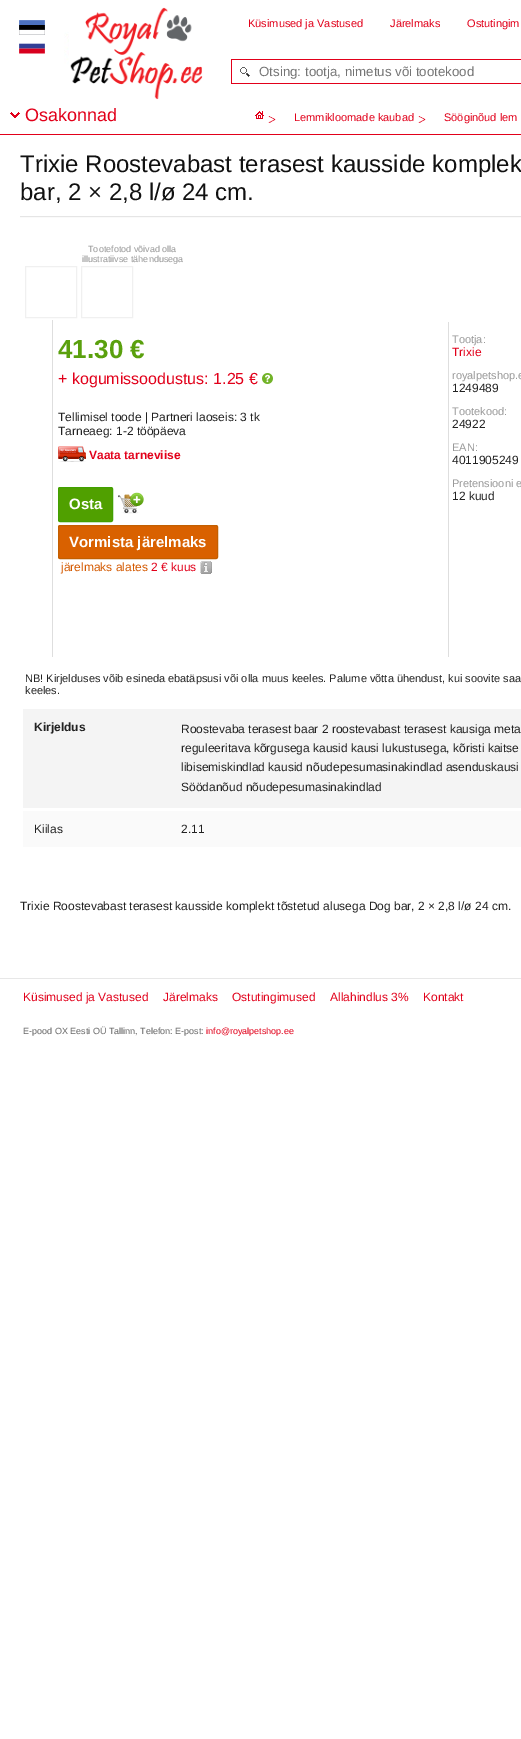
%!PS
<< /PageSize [521 1739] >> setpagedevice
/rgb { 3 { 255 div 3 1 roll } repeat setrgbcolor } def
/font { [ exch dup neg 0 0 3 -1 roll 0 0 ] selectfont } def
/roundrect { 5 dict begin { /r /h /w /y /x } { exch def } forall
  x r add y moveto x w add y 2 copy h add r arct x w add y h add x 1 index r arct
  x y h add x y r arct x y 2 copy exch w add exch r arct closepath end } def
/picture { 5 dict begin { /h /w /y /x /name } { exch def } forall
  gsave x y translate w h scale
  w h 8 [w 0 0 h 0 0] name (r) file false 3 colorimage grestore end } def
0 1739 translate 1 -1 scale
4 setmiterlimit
255 255 255 rgb
0 0 521 1739 rectfill
226 0 26 rgb
0 134 521 1 rectfill
(img/1.rgb) 64 7 139 93 picture
(img/2.rgb) 19 20 26 15 picture
(img/3.rgb) 19 43 26 11 picture
(img/4.rgb) 231 59 290 25 picture
(img/5.rgb) 10 112 10 6 picture
(img/6.rgb) 268 116 8 7 picture
(img/7.rgb) 255 111 9 8 picture
(img/6.rgb) 418 116 8 7 picture
(img/8.rgb) 20 216 501 2 picture
240 240 240 rgb
25.5 266.5 51 51 rectstroke
81.5 266.5 51 51 rectstroke
222 222 222 rgb
52 320 1 337 rectfill
448 322 1 335 rectfill
(img/9.rgb) 262 373 11 11 picture
(img/10.rgb) 58 446 28 16 picture
80 160 0 rgb
58.5 487.5 54 34 1.5 roundrect gsave fill grestore
66 160 0 rgb
stroke
(img/11.rgb) 118 492 26 22 picture
217 97 0 rgb
58.5 525.5 159 33 1.5 roundrect gsave fill grestore
195 95 0 rgb
stroke
(img/12.rgb) 200 561 12 13 picture
[
  [23 709 498 99 244 244 244]
  [23 811 498 36 250 250 250]
  [0 978 521 1 231 231 231]
] { aload pop rgb rectfill } forall
/LiberationSans-Regular 11 font
226 0 26 rgb
[
  [(Küsimused ja Vastused) 248 27]
  [(Järelmaks) 390 27]
  [(Ostutingim) 467 27]
] { aload pop moveto show } forall
/LiberationSans-Regular 13.3 font
117 117 117 rgb
259 76 moveto (Otsing: tootja, nimetus või tootekood) show
/LiberationSans-Regular 18 font
226 0 26 rgb
25 121 moveto (Osakonnad) show
/LiberationSans-Regular 11 font
294 121 moveto (Lemmikloomade kaubad) show
444 121 moveto (Sööginõud lem) show
/LiberationSans-Regular 24 font
17 17 17 rgb
20 172 moveto (Trixie Roostevabast terasest kausside komplek) show
20 200 moveto (bar, 2 × 2,8 l/ø 24 cm.) show
/LiberationSans-Regular 9 font
153 153 153 rgb
88 252 moveto (Tootefotod võivad olla) show
82 262 moveto (illustratiivse tähendusega) show
/LiberationSans-Bold 26 font
90 160 13 rgb
58 358 moveto (41.30 €) show
/LiberationSans-Regular 16 font
226 0 26 rgb
58 384 moveto (+ kogumissoodustus: 1.25 €) show
/LiberationSans-Regular 12 font
34 34 34 rgb
58 421 moveto (Tellimisel toode | Partneri laoseis: 3 tk) show
58 435 moveto (Tarneaeg: 1-2 tööpäeva) show
/LiberationSans-Bold 12 font
226 0 26 rgb
89 459 moveto (Vaata tarneviise) show
/LiberationSans-Bold 15 font
255 255 255 rgb
69 509 moveto (Osta) show
69 547 moveto (Vormista järelmaks) show
/LiberationSans-Regular 12 font
212 89 0 rgb
61 571 moveto (järelmaks alates) show
226 0 26 rgb
151 571 moveto (2 € kuus) show
/LiberationSans-Regular 11 font
153 153 153 rgb
452 343 moveto (Tootja:) show
/LiberationSans-Regular 12 font
226 0 26 rgb
452 356 moveto (Trixie) show
/LiberationSans-Regular 11 font
153 153 153 rgb
452 379 moveto (royalpetshop.e) show
/LiberationSans-Regular 12 font
34 34 34 rgb
452 392 moveto (1249489) show
/LiberationSans-Regular 11 font
153 153 153 rgb
452 415 moveto (Tootekood:) show
/LiberationSans-Regular 12 font
34 34 34 rgb
452 428 moveto (24922) show
/LiberationSans-Regular 11 font
153 153 153 rgb
452 451 moveto (EAN:) show
/LiberationSans-Regular 12 font
34 34 34 rgb
452 464 moveto (4011905249) show
/LiberationSans-Regular 11 font
153 153 153 rgb
452 487 moveto (Pretensiooni e) show
/LiberationSans-Regular 12 font
34 34 34 rgb
452 500 moveto (12 kuud) show
/LiberationSans-Regular 11 font
25 682 moveto (NB! Kirjelduses võib esineda ebatäpsusi või olla muus keeles. Palume võtta ühendust, kui soovite saa) show
25 694 moveto (keeles.) show
/LiberationSans-Bold 12 font
34 731 moveto (Kirjeldus) show
/LiberationSans-Regular 12 font
[
  [(Roostevaba terasest baar 2 roostevabast terasest kausiga meta) 181 733]
  [(reguleeritava kõrgusega kausid kausi lukustusega, kõristi kaitse) 181 752]
  [(libisemiskindlad kausid nõudepesumasinakindlad asenduskausi) 181 771]
  [(Söödanõud nõudepesumasinakindlad) 181 791]
  [(Kiilas) 34 833]
  [(2.11) 181 833]
  [(Trixie Roostevabast terasest kausside komplekt tõstetud alusega Dog bar, 2 × 2,8 l/ø 24 cm.) 20 910]
] { aload pop moveto show } forall
226 0 26 rgb
[
  [(Küsimused ja Vastused) 23 1001]
  [(Järelmaks) 163 1001]
  [(Ostutingimused) 232 1001]
  [(Allahindlus 3%) 330 1001]
  [(Kontakt) 423 1001]
] { aload pop moveto show } forall
/LiberationSans-Regular 9 font
102 102 102 rgb
23 1034 moveto (E-pood OX Eesti OÜ Tallinn, Telefon: E-post:) show
226 0 26 rgb
206 1034 moveto (info@royalpetshop.ee) show
showpage
